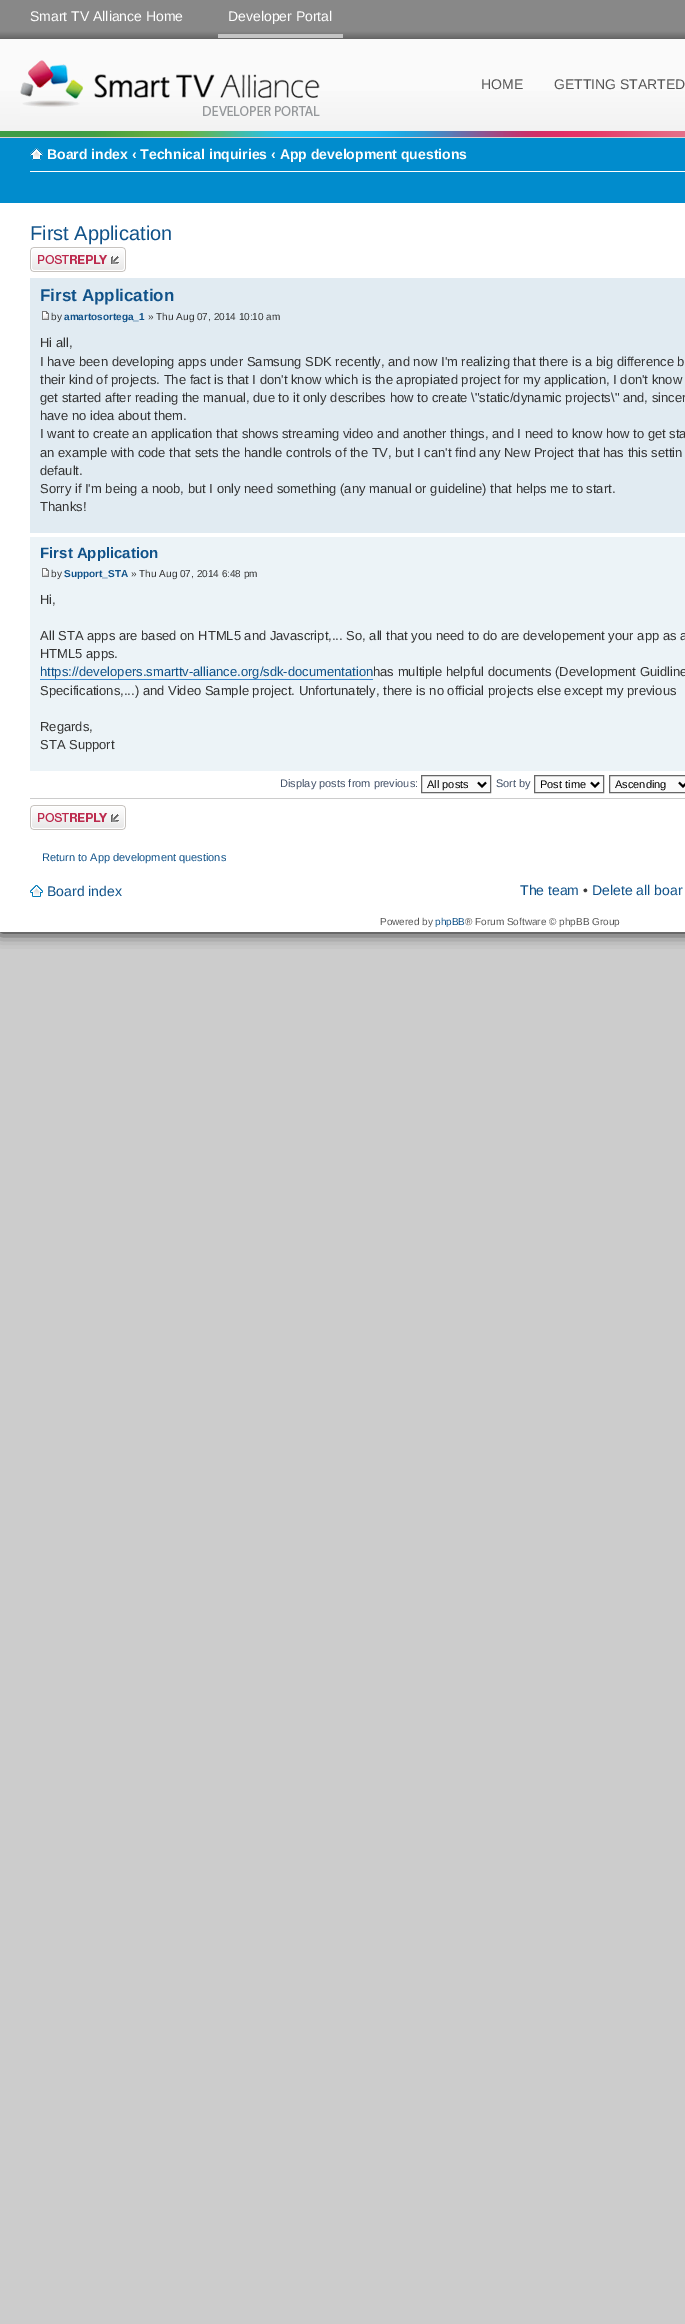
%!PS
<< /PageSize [685 2324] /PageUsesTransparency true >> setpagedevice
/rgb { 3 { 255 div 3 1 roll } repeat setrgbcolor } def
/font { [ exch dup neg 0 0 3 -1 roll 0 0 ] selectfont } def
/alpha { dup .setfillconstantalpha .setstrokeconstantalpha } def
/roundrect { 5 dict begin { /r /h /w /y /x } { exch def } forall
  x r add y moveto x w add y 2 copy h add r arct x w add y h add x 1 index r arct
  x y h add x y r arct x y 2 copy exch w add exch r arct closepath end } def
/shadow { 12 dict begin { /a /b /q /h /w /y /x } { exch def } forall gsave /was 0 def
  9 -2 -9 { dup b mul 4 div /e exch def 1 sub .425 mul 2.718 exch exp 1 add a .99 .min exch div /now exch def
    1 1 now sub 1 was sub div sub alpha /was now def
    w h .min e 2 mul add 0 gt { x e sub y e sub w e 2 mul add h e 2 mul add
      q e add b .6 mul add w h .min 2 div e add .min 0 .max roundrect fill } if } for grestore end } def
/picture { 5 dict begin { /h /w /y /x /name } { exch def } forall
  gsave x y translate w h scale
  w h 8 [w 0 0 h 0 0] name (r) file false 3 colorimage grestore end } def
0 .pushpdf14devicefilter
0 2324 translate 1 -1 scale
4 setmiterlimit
204 204 204 rgb
0 0 685 2324 rectfill
0 0 0 rgb
0 0 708 932 0 7.5 1 shadow
255 255 255 rgb
0 203 685 729 rectfill
gsave 0 0 moveto 685 0 lineto 685 39 lineto 0 39 lineto closepath clip newpath
<< /ShadingType 2 /ColorSpace /DeviceRGB /Coords [500 0 500 39] /Extend [true true] /Function << /FunctionType 3 /Domain [0 1] /Functions [<< /FunctionType 2 /Domain [0 1] /C0 [0.533 0.533 0.533] /C1 [0.533 0.533 0.533] /N 1 >> << /FunctionType 2 /Domain [0 1] /C0 [0.533 0.533 0.533] /C1 [0.396 0.396 0.396] /N 1 >>] /Bounds [0.8] /Encode [0 1 0 1] >> >> shfill grestore
196 196 196 rgb
218 34 125 4 rectfill
gsave 0 39 moveto 685 39 lineto 685 131 lineto 0 131 lineto closepath clip newpath
<< /ShadingType 2 /ColorSpace /DeviceRGB /Coords [500 39 500 137] /Extend [true true] /Function << /FunctionType 3 /Domain [0 1] /Functions [<< /FunctionType 2 /Domain [0 1] /C0 [0.98 0.98 0.98] /C1 [0.98 0.98 0.98] /N 1 >> << /FunctionType 2 /Domain [0 1] /C0 [0.98 0.98 0.98] /C1 [0.945 0.945 0.945] /N 1 >>] /Bounds [0.5] /Encode [0 1 0 1] >> >> shfill grestore
221 211 211 rgb
0 137 685 1 rectfill
(img/1.rgb) 20 60 300 56 picture
(img/2.rgb) 0 131 685 6 picture
1 140 205 rgb
0 138 685 65 rectfill
255 255 255 rgb
30 171 655 1 rectfill
(img/3.rgb) 30 148 13 12 picture
(img/4.rgb) 30 247 96 25 picture
225 235 242 rgb
30 278 655 255 rectfill
(img/5.rgb) 42 311 7 9 picture
236 243 247 rgb
30 537 655 234 rectfill
(img/6.rgb) 42 568 7 9 picture
54 138 210 rgb
40 679 333 1 rectfill
250 250 250 rgb
421.5 775.5 moveto 490.5 775.5 lineto 490.5 792.5 lineto 421.5 792.5 lineto closepath gsave fill grestore
102 102 102 rgb
stroke
0 0 0 rgb
2 setlinewidth
478 782.5 moveto 482 786.5 lineto 486 782.5 lineto stroke
250 250 250 rgb
534.5 775.5 moveto 603.5 775.5 lineto 603.5 792.5 lineto 534.5 792.5 lineto closepath gsave fill grestore
102 102 102 rgb
1 setlinewidth
stroke
0 0 0 rgb
2 setlinewidth
591 782.5 moveto 595 786.5 lineto 599 782.5 lineto stroke
250 250 250 rgb
609.5 775.5 moveto 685.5 775.5 lineto 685.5 792.5 lineto 609.5 792.5 lineto closepath gsave fill grestore
102 102 102 rgb
1 setlinewidth
stroke
0 0 0 rgb
2 setlinewidth
679 782.5 moveto 683 786.5 lineto 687 782.5 lineto stroke
204 204 204 rgb
30 798 655 1 rectfill
(img/4.rgb) 30 805 96 25 picture
(img/7.rgb) 30 885 13 12 picture
/LiberationSans-Regular 14 font
255 255 255 rgb
30 21 moveto (Smart TV Alliance Home) show
228 21 moveto (Developer Portal) show
85 85 85 rgb
481 89 moveto (HOME) show
554 89 moveto (GETTING STARTED) show
/LiberationSans-Bold 14 font
255 255 255 rgb
47 159 moveto (Board index ‹ Technical inquiries ‹ App development questions) show
/LiberationSans-Regular 20 font
16 82 137 rgb
30 240 moveto (First Application) show
/LiberationSans-Bold 17 font
40 301 moveto (First Application) show
/LiberationSans-Regular 10 font
51 51 51 rgb
51 320 moveto (by) show
/LiberationSans-Bold 10 font
16 82 137 rgb
64 320 moveto (amartosortega_1) show
/LiberationSans-Regular 10 font
51 51 51 rgb
148 320 moveto (» Thu Aug 07, 2014 10:10 am) show
/LiberationSans-Regular 13 font
[
  [(Hi all,) 40 347]
  [(I have been developing apps under Samsung SDK recently, and now I'm realizing that there is a big difference b) 40 366]
  [(their kind of projects. The fact is that I don't know which is the apropiated project for my application, I don't know) 40 384]
  [(get started after reading the manual, due to it only describes how to create \\"static/dynamic projects\\" and, sincer) 40 402]
  [(have no idea about them.) 40 420]
  [(I want to create an application that shows streaming video and another things, and I need to know how to get sta) 40 438]
  [(an example with code that sets the handle controls of the TV, but I can't find any New Project that has this settin) 40 457]
  [(default.) 40 475]
  [(Sorry if I'm being a noob, but I only need something \(any manual or guideline\) that helps me to start.) 40 493]
  [(Thanks!) 40 511]
] { aload pop moveto show } forall
/LiberationSans-Bold 15 font
16 82 137 rgb
40 558 moveto (First Application) show
/LiberationSans-Regular 10 font
51 51 51 rgb
51 577 moveto (by) show
/LiberationSans-Bold 10 font
16 82 137 rgb
64 577 moveto (Support_STA) show
/LiberationSans-Regular 10 font
51 51 51 rgb
131 577 moveto (» Thu Aug 07, 2014 6:48 pm) show
/LiberationSans-Regular 13 font
[
  [(Hi,) 40 604]
  [(All STA apps are based on HTML5 and Javascript,... So, all that you need to do are developement your app as a) 40 640]
  [(HTML5 apps.) 40 658]
] { aload pop moveto show } forall
16 82 137 rgb
40 676 moveto (https://developers.smarttv-alliance.org/sdk-documentation) show
51 51 51 rgb
[
  [(has multiple helpful documents \(Development Guidline) 373 676]
  [(Specifications,...\) and Video Sample project. Unfortunately, there is no official projects else except my previous) 40 695]
  [(Regards,) 40 731]
  [(STA Support) 40 749]
] { aload pop moveto show } forall
/LiberationSans-Regular 11 font
66 80 103 rgb
280 787 moveto (Display posts from previous:) show
0 0 0 rgb
427 788 moveto (All posts) show
66 80 103 rgb
496 787 moveto (Sort by) show
0 0 0 rgb
540 788 moveto (Post time) show
615 788 moveto (Ascending) show
16 82 137 rgb
42 861 moveto (Return to App development questions) show
/LiberationSans-Regular 14 font
47 896 moveto (Board index) show
520 895 moveto (The team) show
59 59 59 rgb
583 895 moveto (•) show
16 82 137 rgb
592 895 moveto (Delete all boar) show
/LiberationSans-Regular 10 font
85 85 85 rgb
380 925 moveto (Powered by) show
16 82 137 rgb
435 925 moveto (phpBB) show
85 85 85 rgb
465 925 moveto (® Forum Software © phpBB Group) show
.poppdf14devicefilter showpage
